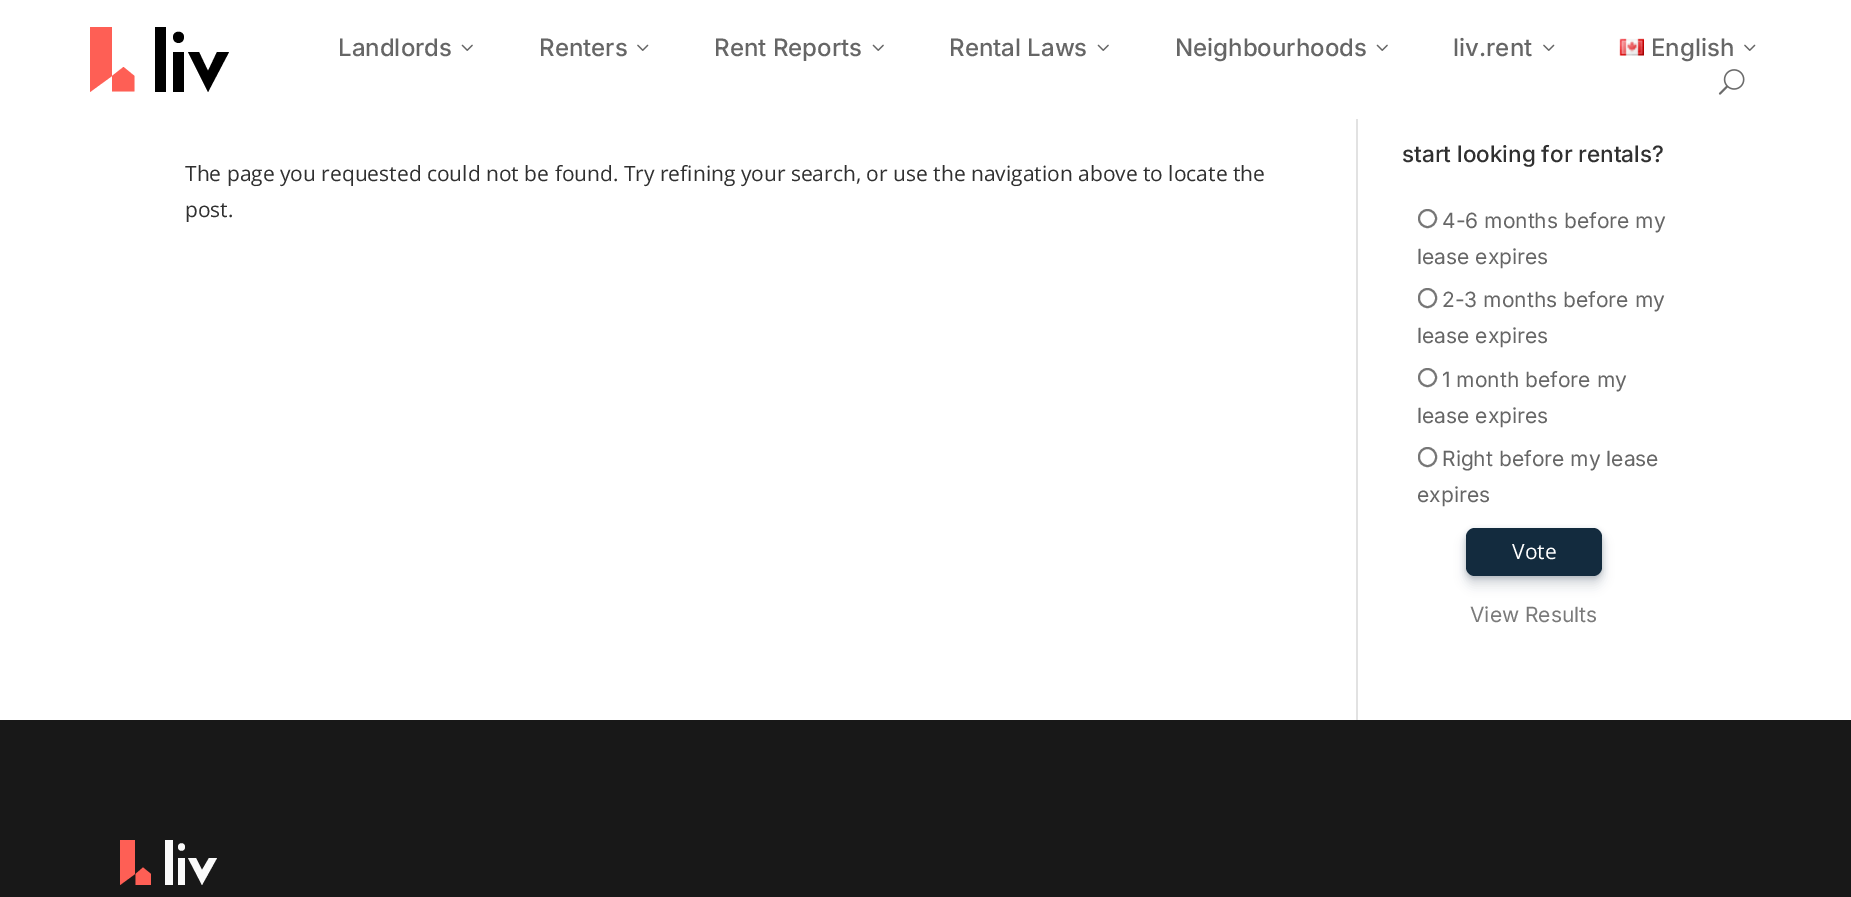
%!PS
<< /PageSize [1851 897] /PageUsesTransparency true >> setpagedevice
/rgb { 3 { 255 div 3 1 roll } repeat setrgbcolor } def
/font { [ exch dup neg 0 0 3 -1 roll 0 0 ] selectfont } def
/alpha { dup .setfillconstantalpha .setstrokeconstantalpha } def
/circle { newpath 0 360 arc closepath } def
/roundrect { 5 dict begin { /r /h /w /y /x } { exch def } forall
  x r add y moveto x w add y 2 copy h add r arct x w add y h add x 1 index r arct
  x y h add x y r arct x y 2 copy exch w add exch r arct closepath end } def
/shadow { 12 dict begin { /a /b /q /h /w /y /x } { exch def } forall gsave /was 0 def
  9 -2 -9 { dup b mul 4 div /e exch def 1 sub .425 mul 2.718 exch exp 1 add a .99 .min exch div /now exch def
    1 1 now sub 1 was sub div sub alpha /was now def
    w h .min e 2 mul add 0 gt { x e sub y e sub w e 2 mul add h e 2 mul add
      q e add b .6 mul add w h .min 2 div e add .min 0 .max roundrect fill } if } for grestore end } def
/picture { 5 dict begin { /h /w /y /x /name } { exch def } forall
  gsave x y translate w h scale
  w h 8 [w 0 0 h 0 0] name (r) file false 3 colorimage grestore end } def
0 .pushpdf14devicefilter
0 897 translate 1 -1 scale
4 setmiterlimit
255 255 255 rgb
0 0 1851 897 rectfill
254 95 85 rgb
123.5 67 moveto 112 76 lineto 112 91.5 lineto 134.5 91.5 lineto 134.5 76 lineto closepath fill
112 92 moveto 112 76 lineto 90 92 lineto 90 27 lineto 112 27 lineto closepath fill
0 0 0 rgb
173 52 moveto 184 52 lineto 184 92 lineto 173 92 lineto closepath 208 71 moveto 217 52 lineto 229 52 lineto 208 92 lineto 188 52 lineto 199 52 lineto closepath 173 37 moveto 173 30 184 30 184 37 curveto 184 45 173 45 173 37 curveto closepath 155 27 moveto 166 27 lineto 166 92 lineto 155 92 lineto closepath fill
(img/1.rgb) 461 44 12 7 picture
(img/2.rgb) 637 44 12 7 picture
(img/1.rgb) 872 44 12 7 picture
(img/1.rgb) 1097 44 12 7 picture
(img/1.rgb) 1376 44 12 7 picture
(img/2.rgb) 1543 44 12 7 picture
(img/3.rgb) 1619 38 25 18 picture
(img/2.rgb) 1744 44 12 7 picture
(img/4.rgb) 1718 69 27 26 picture
226 226 226 rgb
1356 119 2 601 rectfill
118 118 118 rgb
2 setlinewidth
1427.5 218.5 8.5 circle stroke
1419 289 17 18 8.5 roundrect stroke
1427.5 377.5 8.5 circle stroke
1419 448 17 18 8.5 roundrect stroke
19 43 62 rgb
1463 534 142 54 12 4.5 0.1 shadow
1466 531 136 48 9 3 0.25 shadow
1466 528 136 48 9 roundrect fill
24 24 24 rgb
0 720 1851 177 rectfill
254 95 85 rgb
143 867.5 moveto 135.5 874 lineto 135.5 885 lineto 151 885 lineto 151 874 lineto closepath 135 885 moveto 135 874 lineto 120 885 lineto 120 840 lineto 135 840 lineto closepath fill
250 250 250 rgb
178 858 moveto 185 858 lineto 185 885 lineto 178 885 lineto closepath 202 870 moveto 209 858 lineto 217 858 lineto 202 885 lineto 188 858 lineto 196 858 lineto closepath 178 847 moveto 178 842 185 842 185 847 curveto 185 852 178 852 178 847 curveto closepath 165 840 moveto 173 840 lineto 173 885 lineto 165 885 lineto closepath fill
/Inter-Medium 24 font
102 102 102 rgb
[
  [(Landlords) 338 56]
  [(Renters) 539 56]
  [(Rent Reports) 714 56]
  [(Rental Laws) 949 56]
  [(Neighbourhoods) 1175 56]
  [(liv.rent) 1453 56]
  [(English) 1651 56]
] { aload pop moveto show } forall
/OpenSans-Regular 21 font
48 48 48 rgb
185 181 moveto (The page you requested could not be found. Try refining your search, or use the navigation above to locate the) show
185 217 moveto (post.) show
/Inter-Medium 22.5 font
1402 162 moveto (start looking for rentals?) show
/Inter-Regular 21 font
102 102 102 rgb
[
  [(4-6 months before my) 1442 228]
  [(lease expires) 1417 264]
  [(2-3 months before my) 1442 307]
  [(lease expires) 1417 343]
  [(1 month before my) 1442 387]
  [(lease expires) 1417 423]
  [(Right before my lease) 1442 466]
  [(expires) 1417 502]
] { aload pop moveto show } forall
/OpenSans-Regular 21 font
255 255 255 rgb
1512 559 moveto (Vote) show
/Inter-Regular 21 font
122 122 122 rgb
1470 622 moveto (View Results) show
.poppdf14devicefilter showpage
